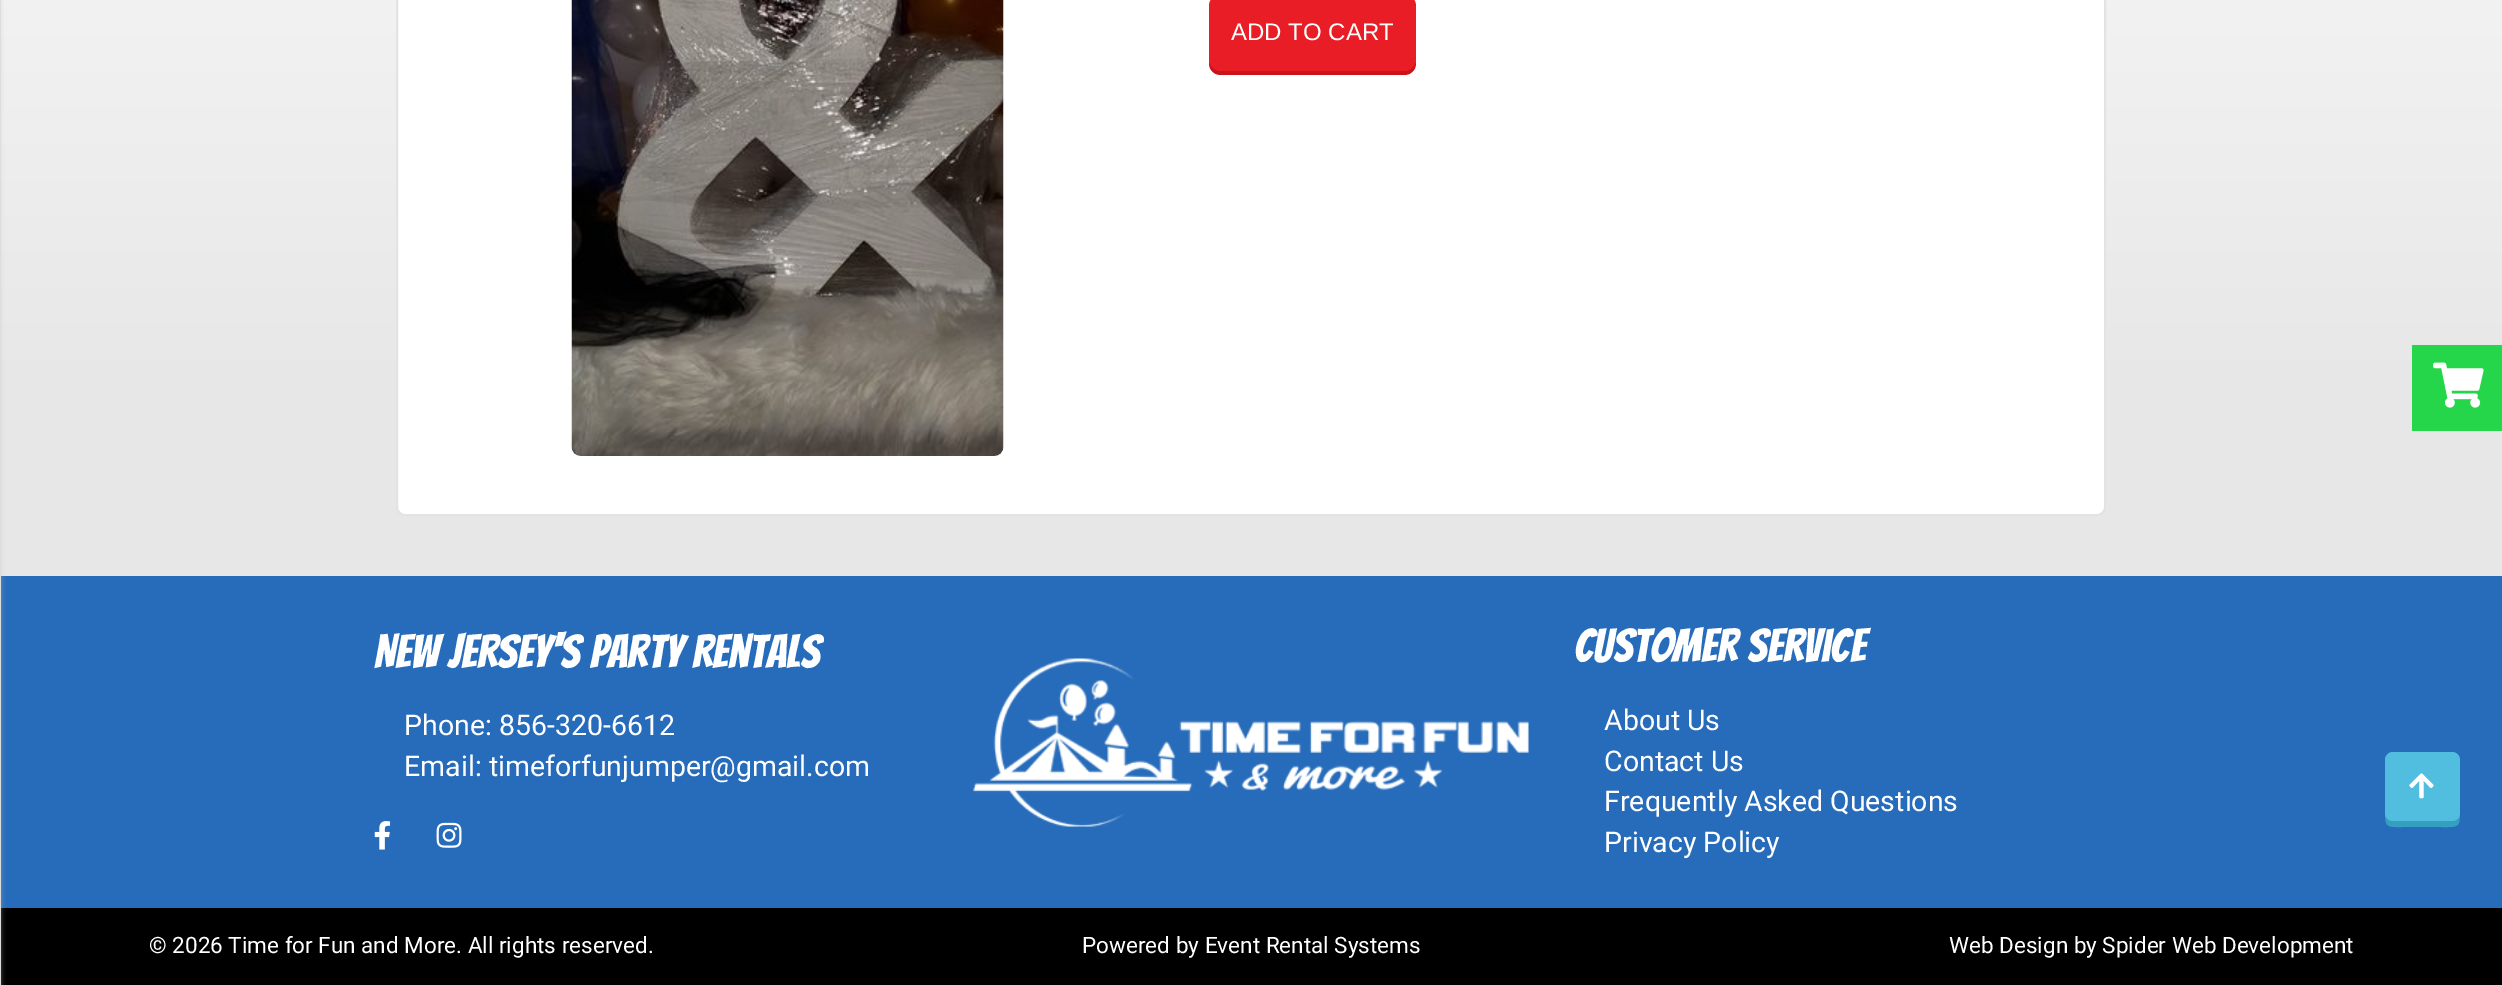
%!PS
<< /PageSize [2502 985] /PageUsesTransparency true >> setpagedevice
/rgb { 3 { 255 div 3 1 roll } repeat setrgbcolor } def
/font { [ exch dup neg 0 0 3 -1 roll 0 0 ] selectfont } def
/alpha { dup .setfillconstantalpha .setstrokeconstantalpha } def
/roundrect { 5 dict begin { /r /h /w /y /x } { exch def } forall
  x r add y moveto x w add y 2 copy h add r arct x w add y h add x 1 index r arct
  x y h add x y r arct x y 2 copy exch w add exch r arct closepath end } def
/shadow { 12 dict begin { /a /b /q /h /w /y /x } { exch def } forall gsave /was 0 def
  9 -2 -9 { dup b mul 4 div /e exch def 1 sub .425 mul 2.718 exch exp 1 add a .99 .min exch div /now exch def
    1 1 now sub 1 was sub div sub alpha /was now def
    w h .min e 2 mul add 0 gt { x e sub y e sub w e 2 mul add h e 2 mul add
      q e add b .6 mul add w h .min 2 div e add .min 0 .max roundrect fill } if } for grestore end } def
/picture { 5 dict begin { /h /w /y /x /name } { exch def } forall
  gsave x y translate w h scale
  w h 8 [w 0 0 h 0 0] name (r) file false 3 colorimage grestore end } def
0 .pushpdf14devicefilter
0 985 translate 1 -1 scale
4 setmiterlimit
39 108 186 rgb
0 0 2502 985 rectfill
231 231 231 rgb
0 0 1 985 rectfill
gsave 1 0 moveto 2502 0 lineto 2502 576 lineto 1 576 lineto closepath clip newpath
<< /ShadingType 2 /ColorSpace /DeviceRGB /Coords [1251 576 1251 -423] /Extend [true true] /Function << /FunctionType 3 /Domain [0 1] /Functions [<< /FunctionType 2 /Domain [0 1] /C0 [0.906 0.906 0.906] /C1 [0.906 0.906 0.906] /N 1 >> << /FunctionType 2 /Domain [0 1] /C0 [0.906 0.906 0.906] /C1 [1 1 1] /N 1 >>] /Bounds [0.2] /Encode [0 1 0 1] >> >> shfill grestore
0 0 0 rgb
1 908 2501 77 rectfill
199 199 199 rgb
-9 0 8 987 0 3 1 shadow
255 255 255 rgb
397 -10 1708 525 8 roundrect gsave fill grestore
227 227 227 rgb
2 setlinewidth
stroke
(img/1.rgb) 571 0 433 456 picture
201 19 25 rgb
1209 58 moveto 1209 63 lineto 1209 70 1214 75 1221 75 curveto 1404 75 lineto 1411 75 1416 70 1416 63 curveto 1416 58 lineto 1416 65 1411 70 1404 70 curveto 1221 70 lineto 1214 70 1209 65 1209 58 curveto closepath fill
233 29 37 rgb
1209 -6 207 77 12 roundrect fill
(img/2.rgb) 374 821 17 29 picture
(img/3.rgb) 436 822 26 26 picture
(img/4.rgb) 973 658 556 169 picture
53 159 191 rgb
2385 813 moveto 2385 828 2388 827 2403 827 curveto 2442 827 lineto 2457 827 2460 828 2460 813 curveto 2460 817 2457 820 2452 820 curveto 2392 820 lineto 2388 820 2385 817 2385 813 curveto closepath fill
81 190 223 rgb
2385 752 75 69 8 roundrect fill
(img/5.rgb) 2409 773 25 26 picture
38 214 74 rgb
2412 345 90 86 rectfill
(img/6.rgb) 2433 362 51 46 picture
/LiberationSans-Regular 24 font
255 255 255 rgb
1231 40 moveto (ADD TO CART) show
/Bangers-Regular 46.5 font
374 668 moveto (New Jersey's Party Rentals) show
/Roboto-Regular 28.5 font
404 735 moveto (Phone: 856-320-6612) show
404 776 moveto (Email: timeforfunjumper@gmail.com) show
/Bangers-Regular 46.5 font
1574 662 moveto (Customer Service) show
/Roboto-Regular 28.5 font
[
  [(About Us) 1604 730]
  [(Contact Us) 1604 771]
  [(Frequently Asked Questions) 1604 811]
  [(Privacy Policy) 1604 852]
] { aload pop moveto show } forall
/Roboto-Regular 22.5 font
[
  [(© 2026 Time for Fun and More. All rights reserved.) 149 953]
  [(Powered by Event Rental Systems) 1082 953]
  [(Web Design by Spider Web Development) 1949 953]
] { aload pop moveto show } forall
.poppdf14devicefilter showpage
